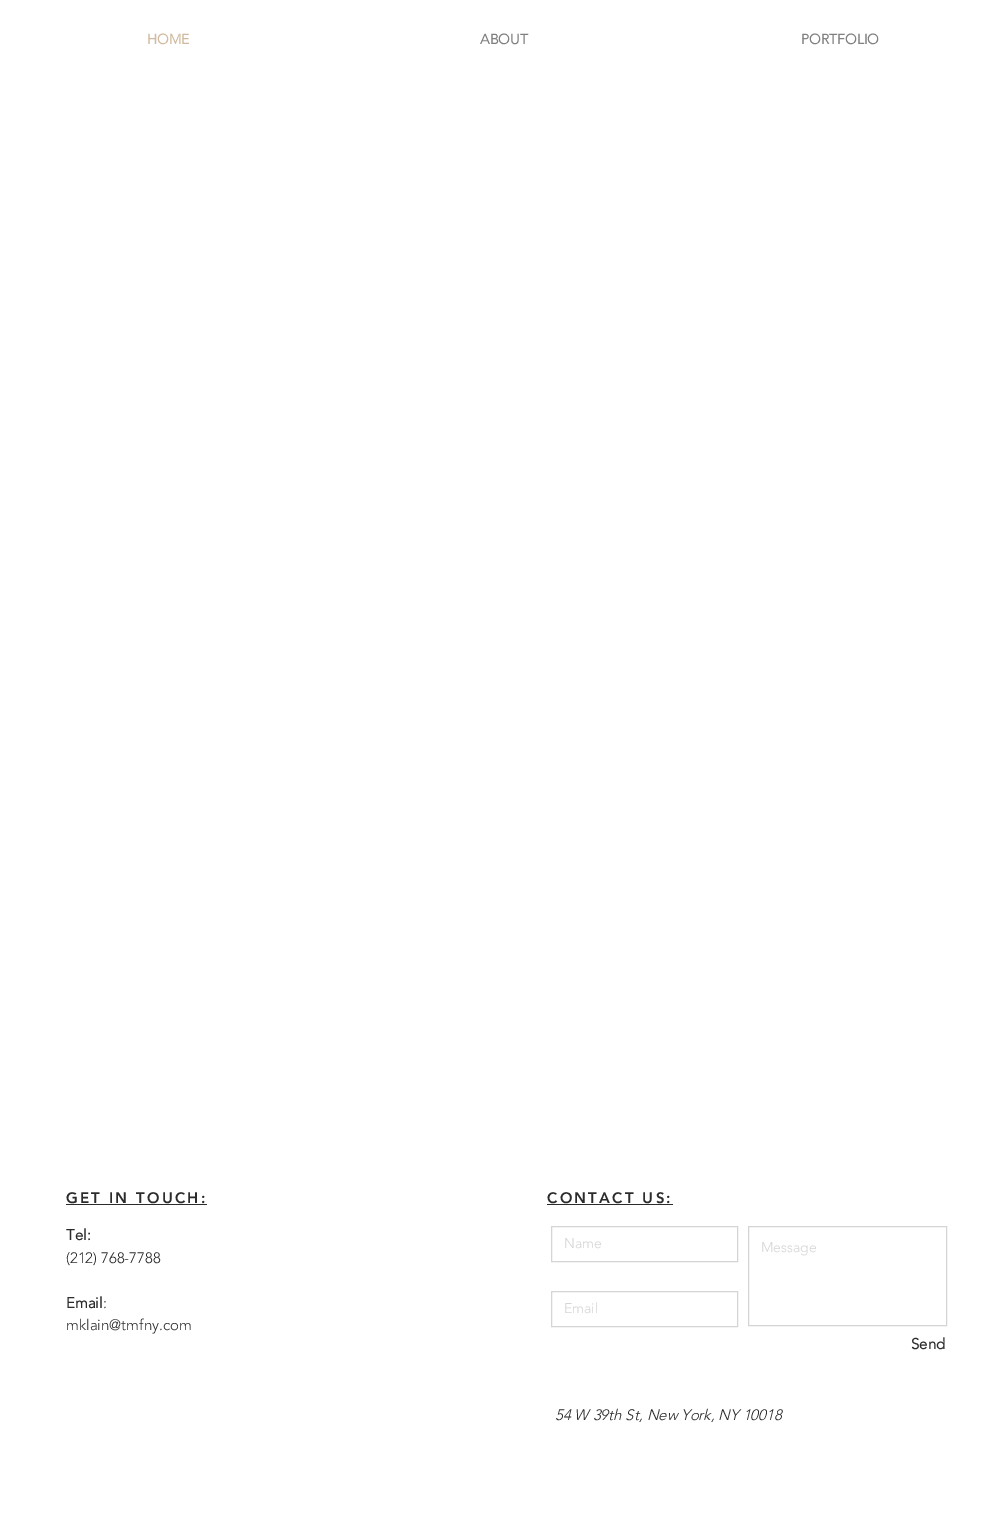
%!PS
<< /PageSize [1008 1517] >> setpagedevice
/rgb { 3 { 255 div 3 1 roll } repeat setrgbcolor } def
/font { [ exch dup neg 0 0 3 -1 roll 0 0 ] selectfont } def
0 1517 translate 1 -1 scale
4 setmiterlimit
255 255 255 rgb
0 0 1008 1517 rectfill
43 43 43 rgb
66 1204 141 1 rectfill
547 1204 126 1 rectfill
213 213 213 rgb
551.5 1226.5 186 35 rectstroke
748.5 1226.5 198 99 rectstroke
551.5 1291.5 186 35 rectstroke
/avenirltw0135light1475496-Bold 14 font
209 186 159 rgb
147 44 moveto (HOME) show
128 128 128 rgb
480 44 moveto (ABOUT) show
801 44 moveto (PORTFOLIO) show
/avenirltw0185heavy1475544-Black 15 font
43 43 43 rgb
66 1203 moveto 2.25 0 (GET IN TOUCH:) ashow
547 1203 moveto 2.25 0 (CONTACT US:) ashow
/avenirltw0135light1475496-Bold 15 font
66 1240 moveto (Tel:) show
/avenirltw0135light1475496-Light 15 font
66 1263 moveto (\(212\) 768-7788) show
/avenirltw0135light1475496-Bold 15 font
66 1308 moveto (Email) show
/avenirltw0135light1475496-Light 15 font
103 1308 moveto (:) show
66 1330 moveto (mklain@tmfny.com) show
/avenirltw0135light1475496-Light 14 font
213 213 213 rgb
[
  [(Name) 564 1248]
  [(Message) 761 1252]
  [(Email) 564 1313]
] { aload pop moveto show } forall
/avenirltw0135light1475496-Bold 15 font
43 43 43 rgb
911 1349 moveto (Send) show
/avenirltw0135light1475496-LightItalic 15 font
555 1420 moveto (54 W 39th St, New York, NY 10018) show
showpage
